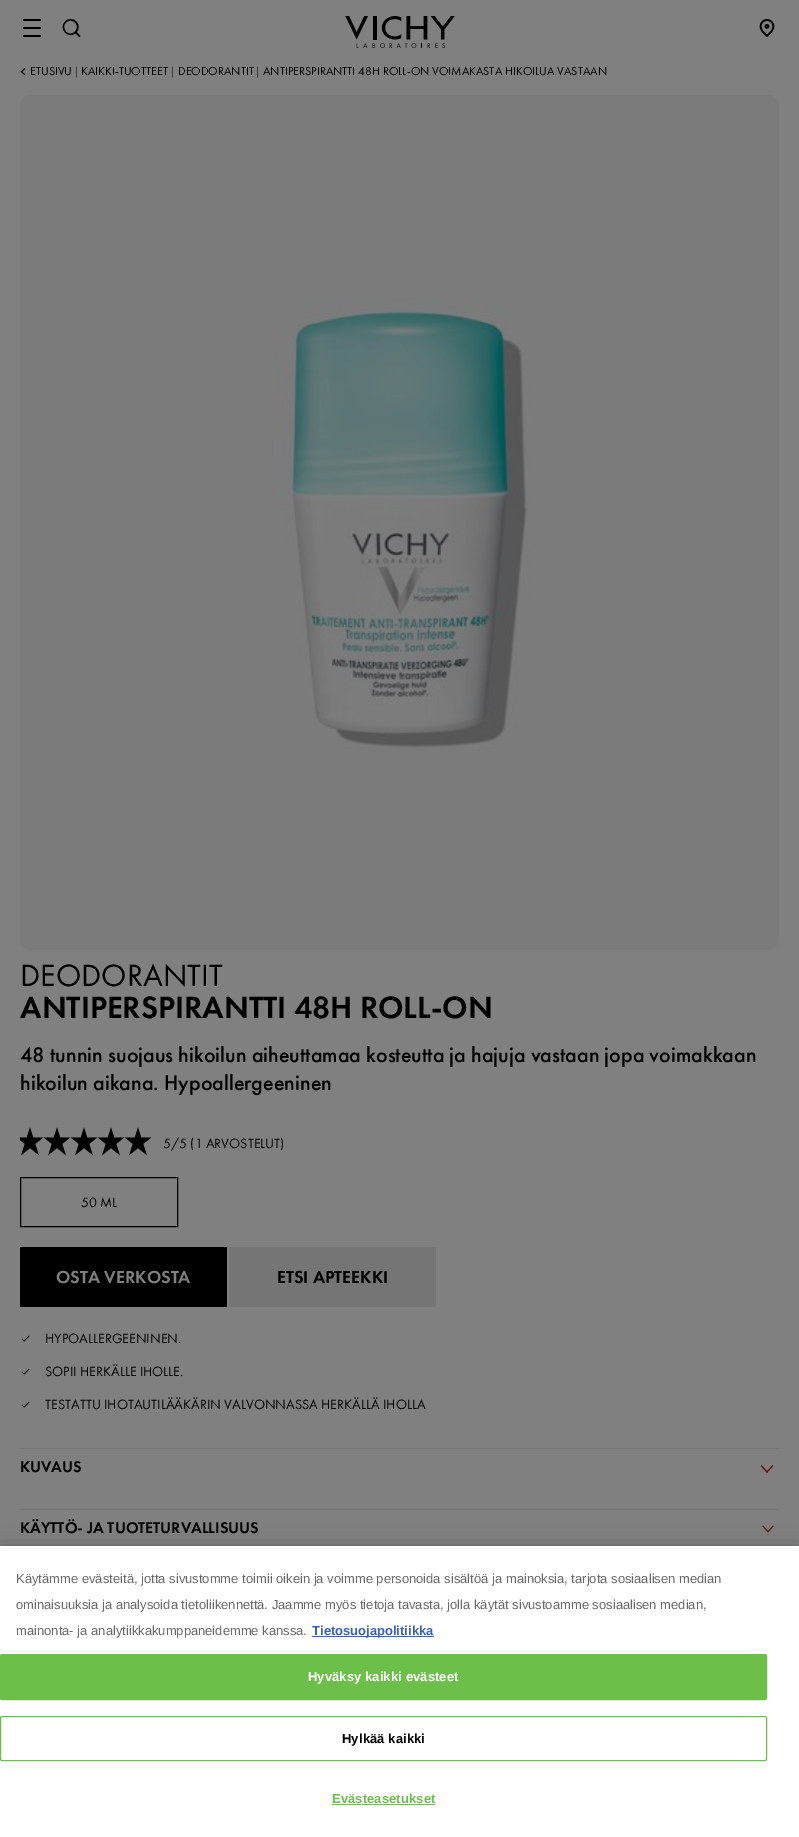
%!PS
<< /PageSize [799 1837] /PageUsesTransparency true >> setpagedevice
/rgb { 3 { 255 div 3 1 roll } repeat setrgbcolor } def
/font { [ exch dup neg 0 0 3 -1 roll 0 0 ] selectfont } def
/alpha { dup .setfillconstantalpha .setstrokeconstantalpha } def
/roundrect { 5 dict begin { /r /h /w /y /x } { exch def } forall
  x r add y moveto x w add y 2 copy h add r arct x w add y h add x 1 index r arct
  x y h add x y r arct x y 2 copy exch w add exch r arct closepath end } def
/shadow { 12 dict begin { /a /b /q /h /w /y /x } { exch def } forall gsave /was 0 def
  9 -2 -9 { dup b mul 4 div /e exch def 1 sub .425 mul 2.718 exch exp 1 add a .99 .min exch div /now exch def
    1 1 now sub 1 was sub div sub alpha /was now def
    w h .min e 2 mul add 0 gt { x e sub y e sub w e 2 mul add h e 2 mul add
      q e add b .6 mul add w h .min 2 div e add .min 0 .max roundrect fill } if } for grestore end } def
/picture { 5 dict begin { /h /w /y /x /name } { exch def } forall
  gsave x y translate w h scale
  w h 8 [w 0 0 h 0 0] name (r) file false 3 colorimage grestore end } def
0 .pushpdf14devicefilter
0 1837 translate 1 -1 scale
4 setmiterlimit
128 128 128 rgb
0 0 799 1837 rectfill
(img/1.rgb) 23 19 18 18 picture
(img/2.rgb) 62 19 19 18 picture
(img/3.rgb) 345 16 110 32 picture
(img/4.rgb) 759 19 16 18 picture
(img/5.rgb) 20 68 6 8 picture
(img/6.rgb) 20 95 759 855 picture
(img/7.rgb) 20 1127 24 29 picture
(img/8.rgb) 43 1127 28 29 picture
(img/8.rgb) 70 1127 28 29 picture
(img/8.rgb) 97 1127 28 29 picture
(img/8.rgb) 124 1127 28 29 picture
0 0 0 rgb
20.5 1177.5 157 49 rectstroke
20 1247 207 60 rectfill
117 117 117 rgb
229 1247 207 60 rectfill
(img/9.rgb) 21 1335 9 7 picture
(img/9.rgb) 21 1368 9 7 picture
(img/9.rgb) 21 1401 9 7 picture
20 1448 759 1 rectfill
(img/10.rgb) 760 1465 14 8 picture
20 1509 759 1 rectfill
(img/11.rgb) 762 1525 12 8 picture
0 0 0 rgb
0 1546 799 291 0 9 0.2 shadow
255 255 255 rgb
0 1546 799 291 rectfill
56 96 190 rgb
312 1636 122 1 rectfill
108 192 74 rgb
0.5 1654.5 766 45 1.5 roundrect gsave fill grestore
stroke
0.5 1716.5 766 44 1.5 roundrect stroke
332 1804 103 1 rectfill
/FuturaPT-Regular 12 font
0 0 0 rgb
30 75 moveto (ETUSIVU) show
/LiberationSerif-Regular 12 font
75 75 moveto (|) show
/FuturaPT-Regular 12 font
81 75 moveto (KAIKKI-TUOTTEET) show
/LiberationSerif-Regular 12 font
171 75 moveto (|) show
/FuturaPT-Regular 12 font
178 75 moveto (DEODORANTIT) show
/LiberationSerif-Regular 12 font
256 75 moveto (|) show
/FuturaPT-Regular 12 font
263 75 moveto (ANTIPERSPIRANTTI 48H ROLL-ON VOIMAKASTA HIKOILUA VASTAAN) show
/FuturaPT-Regular 32 font
20 986 moveto (DEODORANTIT) show
/FuturaPT-Medium 32 font
20 1018 moveto (ANTIPERSPIRANTTI 48H ROLL-ON) show
/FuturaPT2-Medium 22 font
20 1062 moveto (48 tunnin suojaus hikoilun aiheuttamaa kosteutta ja hajuja vastaan jopa voimakkaan) show
20 1090 moveto (hikoilun aikana. Hypoallergeeninen) show
/FuturaPT-Regular 14 font
163 1148 moveto (5/5 \(1 ARVOSTELUT\)) show
81 1207 moveto (50 ML) show
/FuturaPT-Medium 18 font
128 128 128 rgb
56 1283 moveto (OSTA VERKOSTA) show
0 0 0 rgb
277 1283 moveto (ETSI APTEEKKI) show
/FuturaPT-Regular 14 font
[
  [(HYPOALLERGEENINEN.) 45 1343]
  [(SOPII HERKÄLLE IHOLLE.) 45 1376]
  [(TESTATTU IHOTAUTILÄÄKÄRIN VALVONNASSA HERKÄLLÄ IHOLLA) 45 1409]
] { aload pop moveto show } forall
/FuturaPT-Medium 16 font
20 1472 moveto (KUVAUS) show
20 1533 moveto (KÄYTTÖ- JA TUOTETURVALLISUUS) show
/LiberationSans-Regular 13 font
105 105 105 rgb
[
  [(Käytämme evästeitä, jotta sivustomme toimii oikein ja voimme personoida sisältöä ja mainoksia, tarjota sosiaalisen median) 16 1583]
  [(ominaisuuksia ja analysoida tietoliikennettä. Jaamme myös tietoja tavasta, jolla käytät sivustoamme sosiaalisen median,) 16 1609]
  [(mainonta- ja analytiikkakumppaneidemme kanssa.) 16 1635]
] { aload pop moveto show } forall
/LiberationSans-Bold 13 font
56 96 190 rgb
312 1635 moveto (Tietosuojapolitiikka) show
255 255 255 rgb
308 1681 moveto 0.1 0 (Hyväksy kaikki evästeet) ashow
0 0 0 rgb
342 1743 moveto 0.1 0 (Hylkää kaikki) ashow
108 192 74 rgb
332 1803 moveto 0.1 0 (Evästeasetukset) ashow
.poppdf14devicefilter showpage
